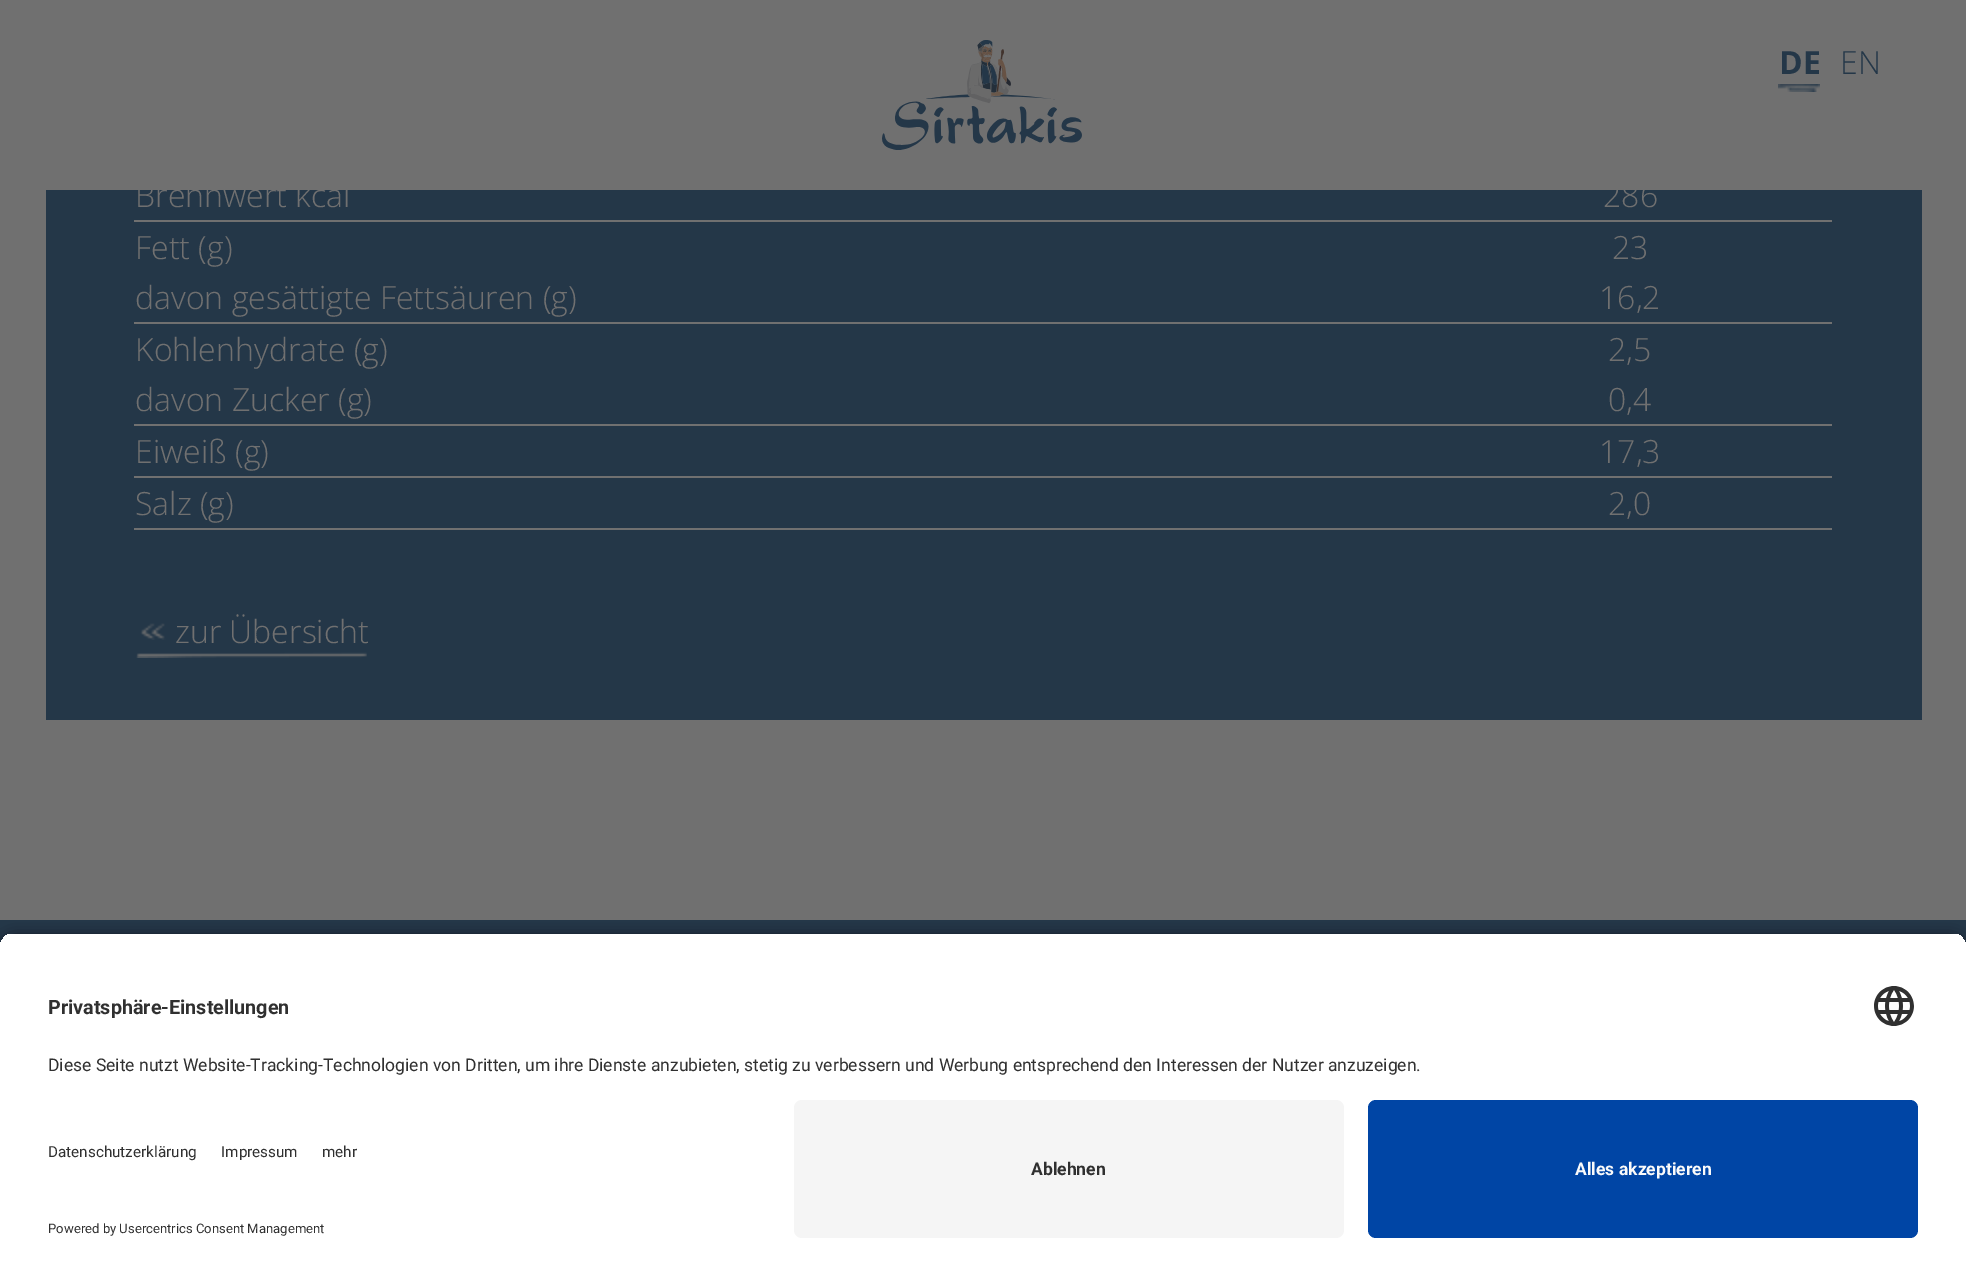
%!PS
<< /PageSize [1966 1285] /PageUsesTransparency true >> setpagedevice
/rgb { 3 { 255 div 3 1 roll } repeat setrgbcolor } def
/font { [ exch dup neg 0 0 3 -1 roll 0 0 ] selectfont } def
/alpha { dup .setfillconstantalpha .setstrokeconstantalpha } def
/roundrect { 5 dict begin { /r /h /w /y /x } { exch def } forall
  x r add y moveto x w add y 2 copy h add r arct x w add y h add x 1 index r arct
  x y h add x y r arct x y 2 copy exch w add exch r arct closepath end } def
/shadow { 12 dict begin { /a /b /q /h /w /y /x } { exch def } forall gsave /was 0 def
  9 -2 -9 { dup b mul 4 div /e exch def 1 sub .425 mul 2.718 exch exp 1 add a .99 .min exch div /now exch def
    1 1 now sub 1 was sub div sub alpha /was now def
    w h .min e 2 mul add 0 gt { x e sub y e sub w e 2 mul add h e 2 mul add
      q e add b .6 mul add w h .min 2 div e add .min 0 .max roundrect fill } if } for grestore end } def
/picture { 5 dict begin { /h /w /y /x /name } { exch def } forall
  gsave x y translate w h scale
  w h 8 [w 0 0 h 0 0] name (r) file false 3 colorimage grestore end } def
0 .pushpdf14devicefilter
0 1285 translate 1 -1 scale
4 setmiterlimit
112 112 112 rgb
0 0 1966 1285 rectfill
(img/1.rgb) 882 40 200 110 picture
(img/2.rgb) 1778 84 42 8 picture
[
  [46 190 1876 530 36 55 72]
  [134 220 1698 2 112 112 112]
  [134 322 1698 2 112 112 112]
  [134 424 1698 2 112 112 112]
  [134 476 1698 2 112 112 112]
  [134 528 1698 2 112 112 112]
] { aload pop rgb rectfill } forall
(img/3.rgb) 136 652 231 6 picture
(img/4.rgb) 140 623 26 17 picture
36 55 72 rgb
0 920 1966 28 rectfill
0 0 0 rgb
0 938 1966 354 16 7 0.8 shadow
gsave
16 932 moveto 1950 932 lineto 1959 932 1966 939 1966 948 curveto 1966 1084 lineto 0 1084 lineto 0 948 lineto 0 939 7 932 16 932 curveto closepath clip newpath
255 255 255 rgb
0 934 1966 150 rectfill
grestore
(img/5.rgb) 1874 986 40 40 picture
255 255 255 rgb
0 1084 1966 201 rectfill
245 245 245 rgb
794 1100 550 138 8 roundrect fill
0 69 165 rgb
1368 1100 550 138 8 roundrect fill
/OpenSans-Bold 32 font
36 55 72 rgb
1779 74 moveto (DE) show
/OpenSans-Light 32 font
1840 74 moveto (EN) show
112 112 112 rgb
[
  [(Brennwert kcal) 135 207]
  [(286) 1603 207]
  [(Fett \(g\)) 135 259]
  [(davon gesättigte Fettsäuren \(g\)) 135 309]
  [(23) 1612 259]
  [(16,2) 1599 309]
  [(Kohlenhydrate \(g\)) 135 361]
  [(davon Zucker \(g\)) 135 411]
  [(2,5) 1608 361]
  [(0,4) 1608 411]
  [(Eiweiß \(g\)) 135 463]
  [(17,3) 1599 463]
  [(Salz \(g\)) 135 515]
  [(2,0) 1608 515]
  [(zur Übersicht) 175 643]
] { aload pop moveto show } forall
/Roboto-Bold 19.75 font
48 48 48 rgb
48 1014 moveto (Privatsphäre-Einstellungen) show
/Roboto-Regular 17.5 font
48 1071 moveto (Diese Seite nutzt Website-Tracking-Technologien von Dritten, um ihre Dienste anzubieten, stetig zu verbessern und Werbung entsprechend den Interessen der Nutzer anzuzeigen.) show
/Roboto-Regular 15.25 font
[
  [(Datenschutzerklärung) 48 1157]
  [(Impressum) 221 1157]
  [(mehr) 322 1157]
] { aload pop moveto show } forall
/Roboto-Regular 13.1 font
48 1233 moveto (Powered by Usercentrics Consent Management) show
/Roboto-Bold 17.5 font
1031 1175 moveto (Ablehnen) show
250 250 250 rgb
1575 1175 moveto (Alles akzeptieren) show
.poppdf14devicefilter showpage
